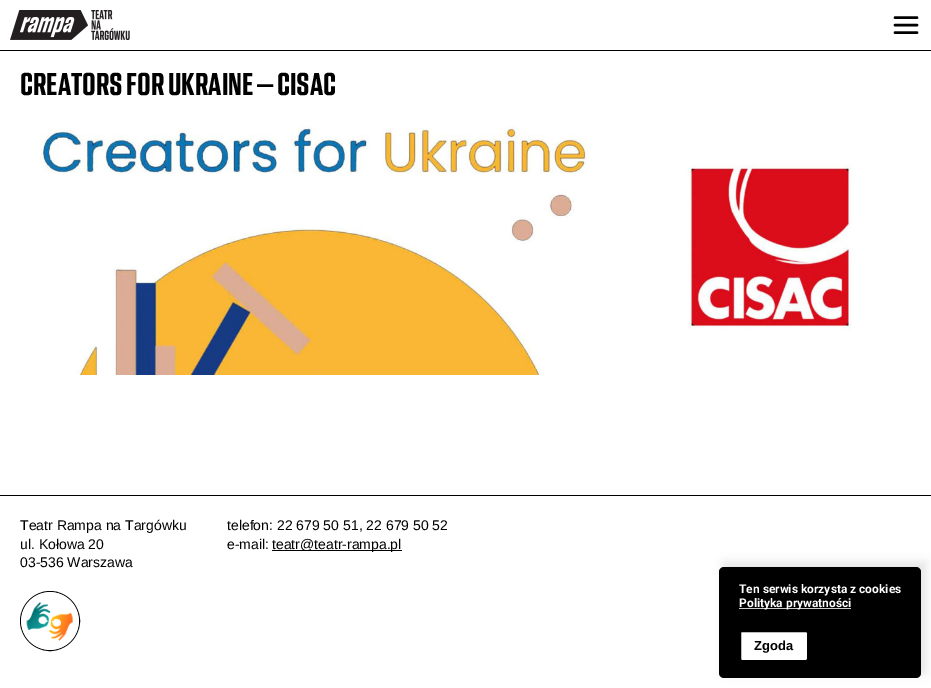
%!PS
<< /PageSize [931 688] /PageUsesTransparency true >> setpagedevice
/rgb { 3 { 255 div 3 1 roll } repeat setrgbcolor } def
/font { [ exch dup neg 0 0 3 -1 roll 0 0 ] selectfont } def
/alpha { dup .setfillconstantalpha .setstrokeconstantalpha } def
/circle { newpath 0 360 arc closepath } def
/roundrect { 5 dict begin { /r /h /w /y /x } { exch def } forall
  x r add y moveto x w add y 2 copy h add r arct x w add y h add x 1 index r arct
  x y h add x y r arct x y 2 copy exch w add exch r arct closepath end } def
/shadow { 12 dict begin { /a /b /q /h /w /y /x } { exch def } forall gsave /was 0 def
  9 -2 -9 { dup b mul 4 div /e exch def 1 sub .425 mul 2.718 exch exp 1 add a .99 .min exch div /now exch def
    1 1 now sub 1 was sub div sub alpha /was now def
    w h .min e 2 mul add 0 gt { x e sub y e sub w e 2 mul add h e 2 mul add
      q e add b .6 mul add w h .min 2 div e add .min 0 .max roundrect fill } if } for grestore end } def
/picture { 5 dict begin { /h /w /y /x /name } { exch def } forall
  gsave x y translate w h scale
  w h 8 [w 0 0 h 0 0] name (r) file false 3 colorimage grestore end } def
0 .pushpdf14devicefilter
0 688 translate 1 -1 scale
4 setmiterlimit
255 255 255 rgb
0 0 931 688 rectfill
0 0 0 rgb
0 50 931 1 rectfill
(img/1.rgb) 10 10 120 30 picture
2.5 setlinewidth
1 setlinecap
1 setlinejoin
895 25 moveto 917 25 lineto 895 17.5 moveto 917 17.5 lineto 895 32.5 moveto 917 32.5 lineto stroke
(img/2.rgb) 40 124 812 251 picture
0 495 931 1 rectfill
272 550 130 1 rectfill
1 setlinewidth
0 setlinecap
0 setlinejoin
50 621 29.5 circle stroke
(img/3.rgb) 21 592 58 58 picture
724 562 202 111 0 5 0.1 shadow
719 567 202 111 5 roundrect fill
204 204 204 rgb
739 608 112 1 rectfill
255 255 255 rgb
740 631 68 30 2 roundrect gsave fill grestore
0 0 0 rgb
2 setlinewidth
stroke
/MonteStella-Medium 32.5 font
20 95 moveto (CREATORS FOR UKRAINE – CISAC) show
/LiberationSans-Regular 14 font
[
  [(Teatr Rampa na Targówku) 20 530]
  [(ul. Kołowa 20) 20 549]
  [(03-536 Warszawa) 20 567]
  [(telefon: 22 679 50 51, 22 679 50 52) 227 530]
  [(e-mail:) 227 549]
  [(teatr@teatr-rampa.pl) 272 549]
] { aload pop moveto show } forall
/Roboto-Bold 12 font
255 255 255 rgb
739 593 moveto (Ten serwis korzysta z cookies) show
739 607 moveto (Polityka prywatności) show
/LiberationSans-Bold 13 font
0 0 0 rgb
754 650 moveto (Zgoda) show
.poppdf14devicefilter showpage
